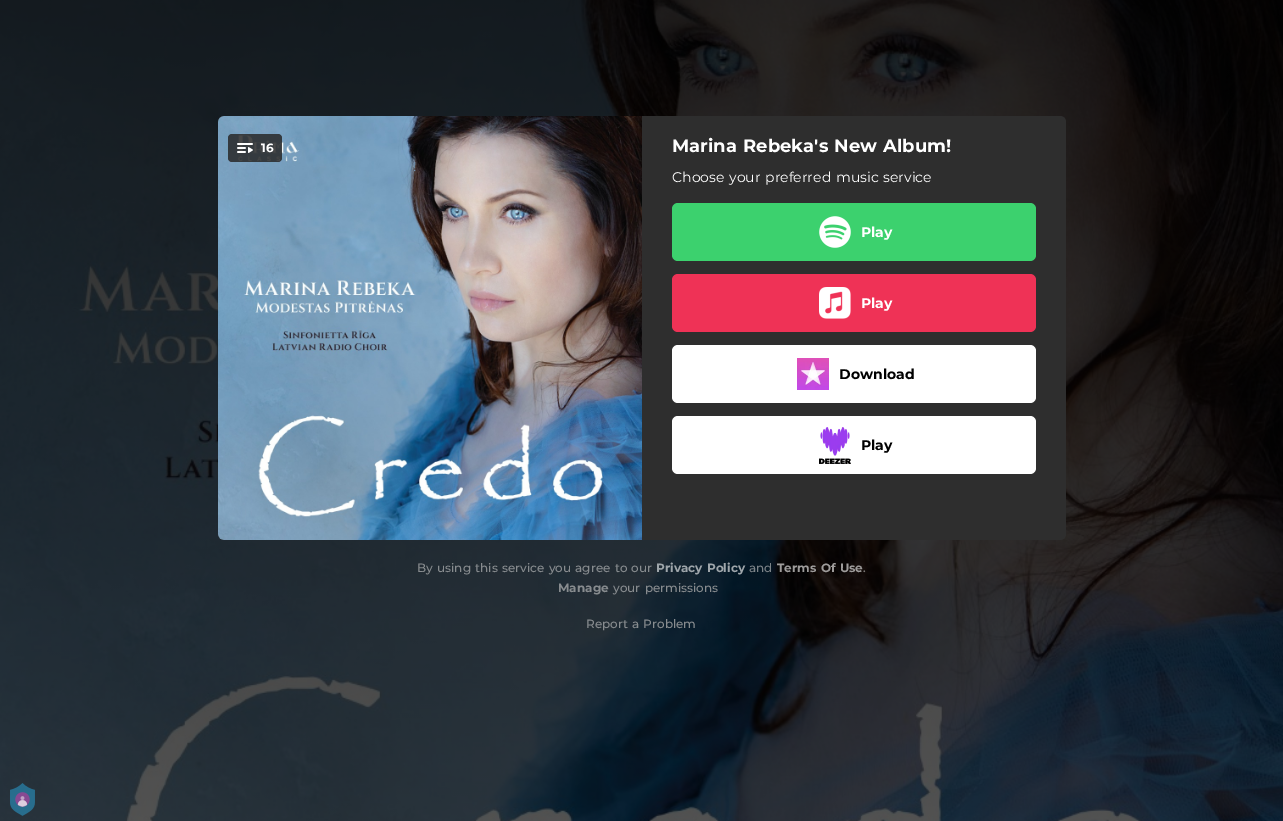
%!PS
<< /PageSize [1283 821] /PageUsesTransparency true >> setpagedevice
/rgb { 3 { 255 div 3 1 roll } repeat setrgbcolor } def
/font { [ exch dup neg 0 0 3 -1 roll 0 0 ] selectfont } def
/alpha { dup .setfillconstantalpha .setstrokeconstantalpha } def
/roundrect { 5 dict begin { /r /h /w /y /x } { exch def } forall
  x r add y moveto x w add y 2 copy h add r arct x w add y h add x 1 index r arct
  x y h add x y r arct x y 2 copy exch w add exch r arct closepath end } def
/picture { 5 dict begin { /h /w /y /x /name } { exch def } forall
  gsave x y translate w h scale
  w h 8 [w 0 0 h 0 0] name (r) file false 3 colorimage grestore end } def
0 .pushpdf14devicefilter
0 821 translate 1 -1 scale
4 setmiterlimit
255 255 255 rgb
0 0 1283 821 rectfill
(img/1.rgb) 0 0 1283 821 picture
(img/2.rgb) 218 116 424 424 picture
0.85 alpha
40 40 40 rgb
228 134 54 28 4 roundrect fill
1 alpha
(img/3.rgb) 237 143 16 10 picture
46 46 46 rgb
642 116 moveto 1060 116 lineto 1063.5 116 1066 118.5 1066 122 curveto 1066 534 lineto 1066 537.5 1063.5 540 1060 540 curveto 642 540 lineto closepath fill
60 209 110 rgb
672 203 364 58 6 roundrect fill
(img/4.rgb) 819 216 32 32 picture
239 50 86 rgb
672 274 364 58 6 roundrect fill
(img/5.rgb) 819 287 32 32 picture
255 255 255 rgb
672 345 364 58 6 roundrect fill
(img/6.rgb) 797 358 32 32 picture
672 416 364 58 6 roundrect fill
(img/7.rgb) 819 427 32 37 picture
(img/8.rgb) 10 783 25 33 picture
/Montserrat-Bold 12 font
261 152 moveto (16) show
/Montserrat-Regular 13 font
116 153 183 rgb
413 171 moveto 1 0 32 (!) widthshow
/Montserrat-Bold 18 font
255 255 255 rgb
672 152 moveto 1 0 32 (Marina Rebeka's New Album!) widthshow
/Montserrat-Regular 14 font
672 182 moveto 1 0 32 (Choose your preferred music service) widthshow
/Montserrat-Bold 14 font
861 237 moveto (Play) show
861 308 moveto (Play) show
0 0 0 rgb
839 379 moveto (Download) show
861 450 moveto (Play) show
/Montserrat-Medium 12 font
136 140 143 rgb
417 572 moveto 1 0 32 (By using this service you agree to our) widthshow
/Montserrat-Bold 12 font
159 166 171 rgb
656 572 moveto 1 0 32 (Privacy Policy) widthshow
/Montserrat-Medium 12 font
124 131 136 rgb
749 572 moveto (and) show
/Montserrat-Bold 12 font
158 156 155 rgb
777 572 moveto 1 0 32 (Terms Of Use) widthshow
/Montserrat-Medium 12 font
129 126 125 rgb
863 572 moveto (.) show
/Montserrat-Bold 12 font
136 140 143 rgb
558 592 moveto (Manage) show
/Montserrat-Medium 12 font
613 592 moveto 1 0 32 (your permissions) widthshow
586 628 moveto 1 0 32 (Report a Problem) widthshow
.poppdf14devicefilter showpage
